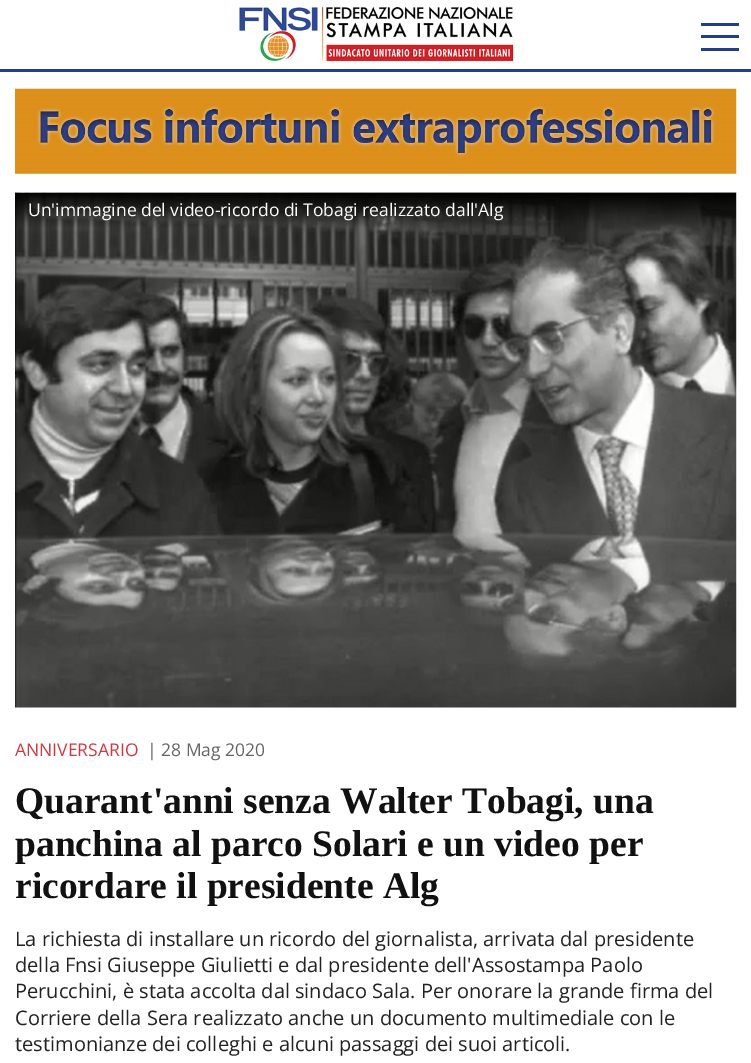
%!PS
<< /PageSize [751 1063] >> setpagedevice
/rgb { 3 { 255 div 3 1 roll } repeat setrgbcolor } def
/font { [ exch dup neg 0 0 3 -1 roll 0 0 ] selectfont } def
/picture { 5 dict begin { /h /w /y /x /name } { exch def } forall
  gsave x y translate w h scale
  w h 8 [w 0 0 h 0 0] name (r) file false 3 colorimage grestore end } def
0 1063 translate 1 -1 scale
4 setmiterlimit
255 255 255 rgb
0 0 751 1063 rectfill
34 62 139 rgb
0 69 751 3 rectfill
(img/1.rgb) 239 6 275 56 picture
[
  [701 23 38 3 34 62 139]
  [701 35 38 3 34 62 139]
  [701 48 38 3 34 62 139]
] { aload pop rgb rectfill } forall
(img/2.rgb) 15 88 722 86 picture
(img/3.rgb) 15 192 722 516 picture
/OpenSans-Regular 17.5 font
255 255 255 rgb
28 216 moveto (Un'immagine del video-ricordo di Tobagi realizzato dall'Alg) show
209 57 63 rgb
15 756 moveto (ANNIVERSARIO) show
102 102 102 rgb
147 756 moveto (| 28 Mag 2020) show
/LiberationSerif-Bold 37.5 font
17 17 17 rgb
[
  [(Quarant'anni senza Walter Tobagi, una) 15 813]
  [(panchina al parco Solari e un video per) 15 856]
  [(ricordare il presidente Alg) 15 898]
] { aload pop moveto show } forall
/OpenSans-Regular 20 font
34 34 34 rgb
[
  [(La richiesta di installare un ricordo del giornalista, arrivata dal presidente) 15 946]
  [(della Fnsi Giuseppe Giulietti e dal presidente dell'Assostampa Paolo) 15 972]
  [(Perucchini, è stata accolta dal sindaco Sala. Per onorare la grande firma del) 15 998]
  [(Corriere della Sera realizzato anche un documento multimediale con le) 15 1025]
  [(testimonianze dei colleghi e alcuni passaggi dei suoi articoli.) 15 1051]
] { aload pop moveto show } forall
showpage
